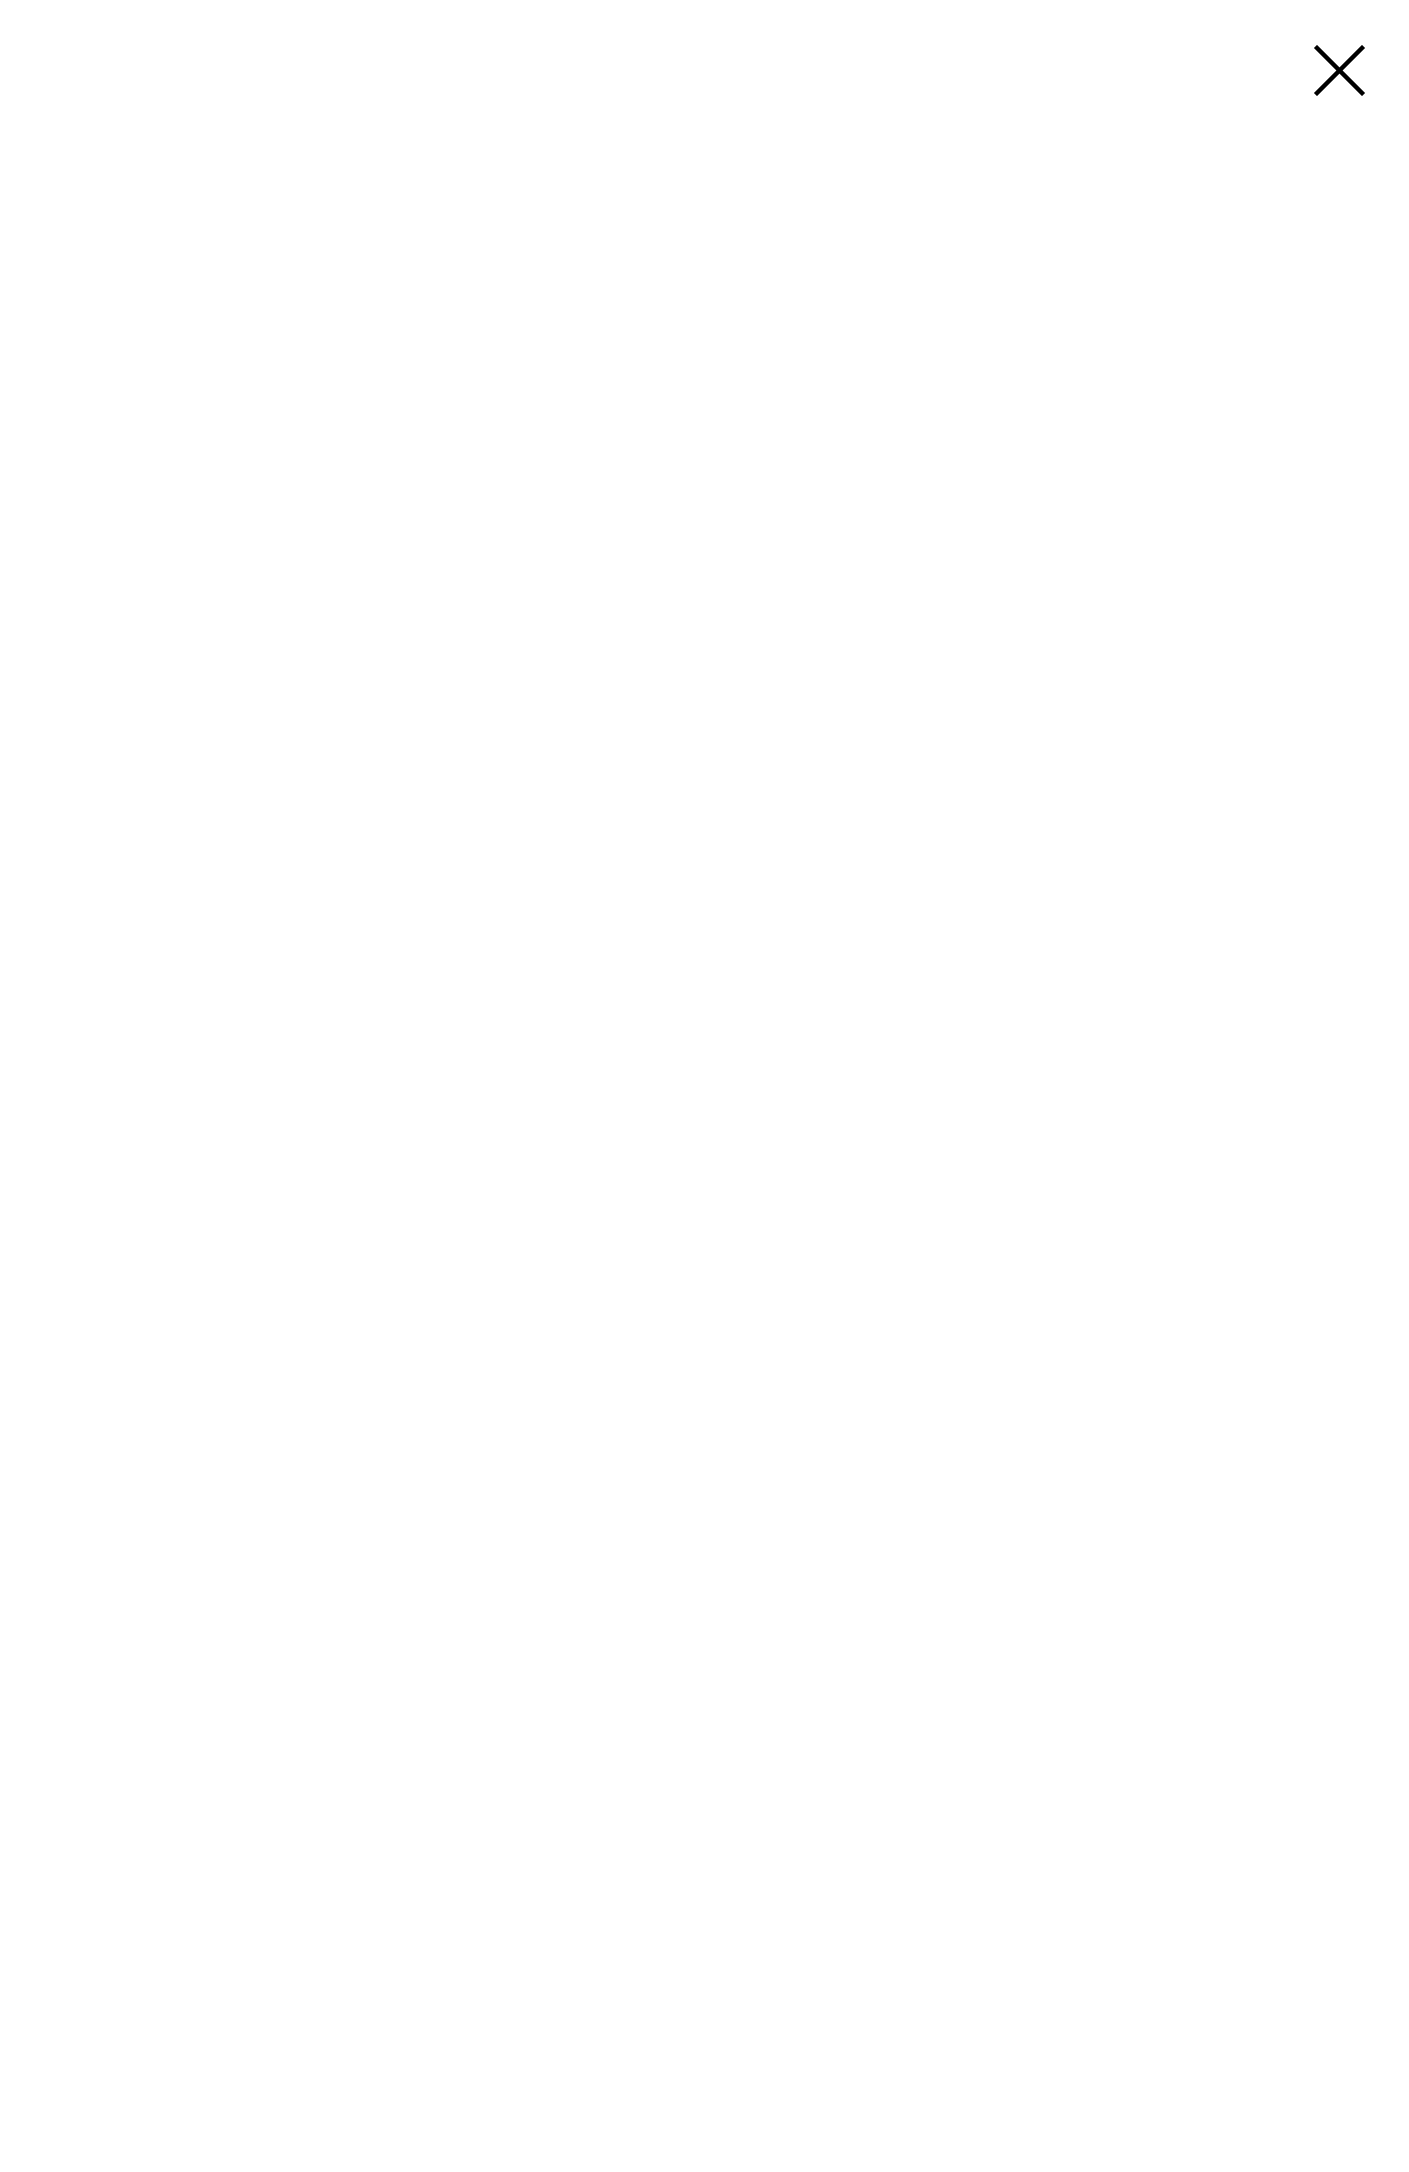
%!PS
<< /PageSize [1409 2172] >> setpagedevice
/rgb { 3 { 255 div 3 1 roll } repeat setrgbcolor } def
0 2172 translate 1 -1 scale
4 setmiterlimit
255 255 255 rgb
0 0 1409 2172 rectfill
0 0 0 rgb
1314 48 moveto 1317 45 lineto 1365 93 lineto 1362 96 lineto closepath eofill
1362 45 moveto 1365 48 lineto 1317 96 lineto 1314 93 lineto closepath eofill
showpage
